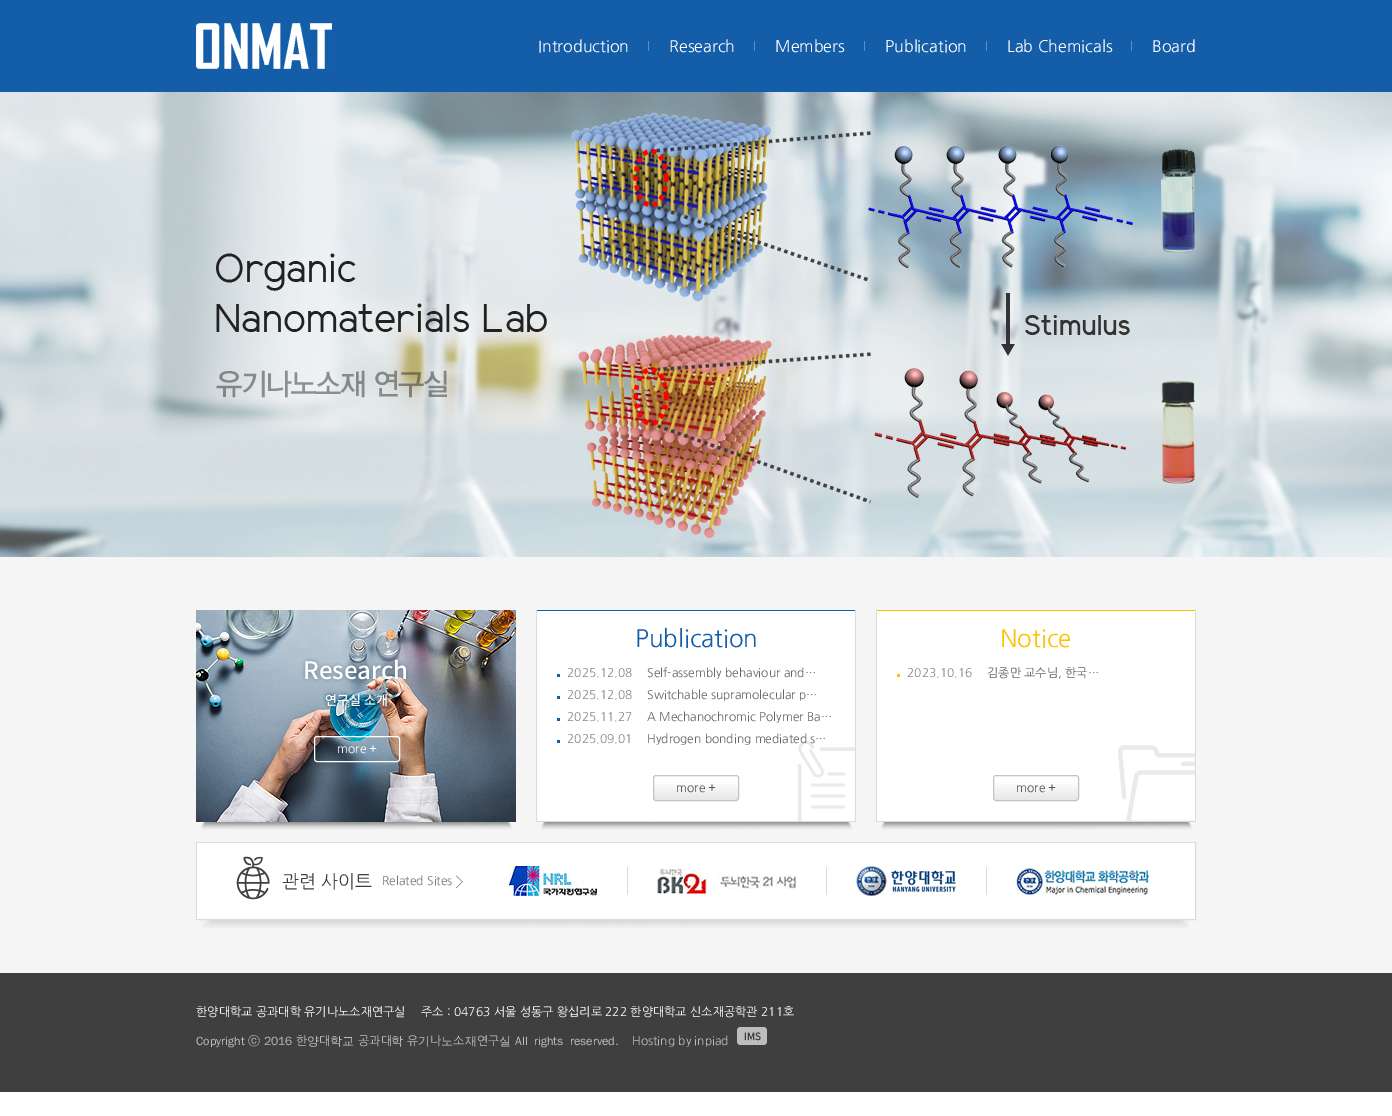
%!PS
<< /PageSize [1392 1116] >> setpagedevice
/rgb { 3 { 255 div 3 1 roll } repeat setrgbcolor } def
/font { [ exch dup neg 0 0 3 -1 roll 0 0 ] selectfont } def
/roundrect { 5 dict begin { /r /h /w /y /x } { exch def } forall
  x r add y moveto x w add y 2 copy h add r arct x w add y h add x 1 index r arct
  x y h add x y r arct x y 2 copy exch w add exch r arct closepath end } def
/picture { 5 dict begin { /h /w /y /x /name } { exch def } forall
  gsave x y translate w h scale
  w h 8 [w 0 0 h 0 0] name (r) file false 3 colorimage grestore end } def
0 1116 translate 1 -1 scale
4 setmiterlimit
255 255 255 rgb
0 0 1392 1116 rectfill
20 94 169 rgb
0 0 1392 92 rectfill
(img/1.rgb) 196 23 136 47 picture
[
  [648 41 1 10 93 144 196]
  [754 41 1 10 93 144 196]
  [864 41 1 10 93 144 196]
  [986 41 1 10 93 144 196]
  [1131 41 1 10 93 144 196]
] { aload pop rgb rectfill } forall
(img/2.rgb) 0 92 1392 465 picture
245 245 245 rgb
0 557 1392 416 rectfill
(img/3.rgb) 201 822 311 8 picture
(img/4.rgb) 196 610 320 212 picture
255 255 255 rgb
314.5 736.5 85 25 2.5 roundrect stroke
(img/3.rgb) 541 822 311 8 picture
537 611 318 210 rectfill
(img/5.rgb) 797 741 58 80 picture
[
  [536 610 320 1 20 94 169]
  [855 610 1 212 219 219 219]
  [536 821 320 1 219 219 219]
  [536 610 1 212 219 219 219]
  [557 674 3 3 20 94 169]
  [557 696 3 3 20 94 169]
  [557 718 3 3 20 94 169]
  [557 740 3 3 20 94 169]
] { aload pop rgb rectfill } forall
gsave
653 775 86 26 3 roundrect clip newpath
gsave 653 776 moveto 739 776 lineto 739 800 lineto 653 800 lineto closepath clip newpath
<< /ShadingType 2 /ColorSpace /DeviceRGB /Coords [696 776 696 800] /Extend [true true] /Function << /FunctionType 3 /Domain [0 1] /Functions [<< /FunctionType 2 /Domain [0 1] /C0 [1 1 1] /C1 [0.992 0.992 0.992] /N 1 >> << /FunctionType 2 /Domain [0 1] /C0 [0.992 0.992 0.992] /C1 [0.906 0.906 0.906] /N 1 >>] /Bounds [0.28] /Encode [0 1 0 1] >> >> shfill grestore
grestore
196 196 196 rgb
653.5 775.5 85 25 2.5 roundrect stroke
(img/3.rgb) 881 822 311 8 picture
255 255 255 rgb
877 611 318 210 rectfill
(img/6.rgb) 1118 745 77 76 picture
[
  [876 610 320 1 255 192 0]
  [1195 610 1 212 219 219 219]
  [876 821 320 1 219 219 219]
  [876 610 1 212 219 219 219]
  [897 674 3 3 255 192 0]
] { aload pop rgb rectfill } forall
gsave
993 775 86 26 3 roundrect clip newpath
gsave 993 776 moveto 1079 776 lineto 1079 800 lineto 993 800 lineto closepath clip newpath
<< /ShadingType 2 /ColorSpace /DeviceRGB /Coords [1036 776 1036 800] /Extend [true true] /Function << /FunctionType 3 /Domain [0 1] /Functions [<< /FunctionType 2 /Domain [0 1] /C0 [1 1 1] /C1 [0.992 0.992 0.992] /N 1 >> << /FunctionType 2 /Domain [0 1] /C0 [0.992 0.992 0.992] /C1 [0.906 0.906 0.906] /N 1 >>] /Bounds [0.28] /Encode [0 1 0 1] >> >> shfill grestore
grestore
196 196 196 rgb
993.5 775.5 85 25 2.5 roundrect stroke
(img/7.rgb) 202 920 987 8 picture
219 219 219 rgb
196.5 842.5 999 77 rectstroke
(img/8.rgb) 197 843 268 76 picture
(img/9.rgb) 465 843 163 76 picture
(img/10.rgb) 628 843 199 76 picture
(img/11.rgb) 827 843 160 76 picture
(img/12.rgb) 987 843 208 76 picture
63 63 63 rgb
0 973 1392 119 rectfill
(img/13.rgb) 737 1027 30 18 picture
/NanumGothic-Regular 16 font
255 255 255 rgb
[
  [(Introduction) 538 52]
  [(Research) 669 52]
  [(Members) 775 52]
  [(Publication) 885 52]
  [(Lab Chemicals) 1007 52]
  [(Board) 1152 52]
] { aload pop moveto show } forall
/NanumGothic-Regular 12 font
337 753 moveto (more +) show
/NanumGothic-Regular 24 font
20 94 169 rgb
635 647 moveto (Publication) show
/NanumGothic-Regular 12 font
136 136 136 rgb
567 677 moveto (2025.12.08) show
102 102 102 rgb
647 677 moveto (Self-assembly behaviour and…) show
136 136 136 rgb
567 699 moveto (2025.12.08) show
102 102 102 rgb
647 699 moveto (Switchable supramolecular p…) show
136 136 136 rgb
567 721 moveto (2025.11.27) show
102 102 102 rgb
647 721 moveto (A Mechanochromic Polymer Ba…) show
136 136 136 rgb
567 743 moveto (2025.09.01) show
102 102 102 rgb
647 743 moveto (Hydrogen bonding mediated s…) show
85 85 85 rgb
676 792 moveto (more +) show
/NanumGothic-Regular 24 font
255 192 0 rgb
1000 647 moveto (Notice) show
/NanumGothic-Regular 12 font
136 136 136 rgb
907 677 moveto (2023.10.16) show
102 102 102 rgb
987 677 moveto (김종만 교수님, 한국…) show
85 85 85 rgb
1016 792 moveto (more +) show
/NanumGothic-Regular 18 font
63 63 63 rgb
282 888 moveto (관련 사이트) show
/NanumGothic-Regular 12 font
120 120 120 rgb
382 885 moveto (Related Sites) show
255 255 255 rgb
196 1016 moveto (한양대학교 공과대학 유기나노소재연구실) show
421 1016 moveto (주소 : 04763 서울 성동구 왕십리로 222 한양대학교 신소재공학관 211호) show
/WenQuanYiZenHei-Medium 12 font
189 189 189 rgb
196 1045 moveto (Copyright ⓒ 2016) show
/NanumGothic-Regular 12 font
296 1045 moveto (한) show
/WenQuanYiZenHei-Medium 12 font
307 1045 moveto (양) show
/NanumGothic-Regular 12 font
319 1045 moveto (대) show
/WenQuanYiZenHei-Medium 12 font
330 1045 moveto (학교) show
/NanumGothic-Regular 12 font
358 1045 moveto (공과대) show
/WenQuanYiZenHei-Medium 12 font
391 1045 moveto (학) show
/NanumGothic-Regular 12 font
407 1045 moveto (유) show
/WenQuanYiZenHei-Medium 12 font
418 1045 moveto (기) show
/NanumGothic-Regular 12 font
430 1045 moveto (나) show
/WenQuanYiZenHei-Medium 12 font
441 1045 moveto (노) show
/NanumGothic-Regular 12 font
453 1045 moveto (소) show
/WenQuanYiZenHei-Medium 12 font
465 1045 moveto (재) show
/NanumGothic-Regular 12 font
477 1045 moveto (연구) show
/WenQuanYiZenHei-Medium 12 font
499 1045 moveto (실) show
515 1045 moveto 3 0 32 (All rights reserved.) widthshow
/NanumGothic-Regular 12 font
632 1045 moveto (Hosting by inpiad) show
showpage
